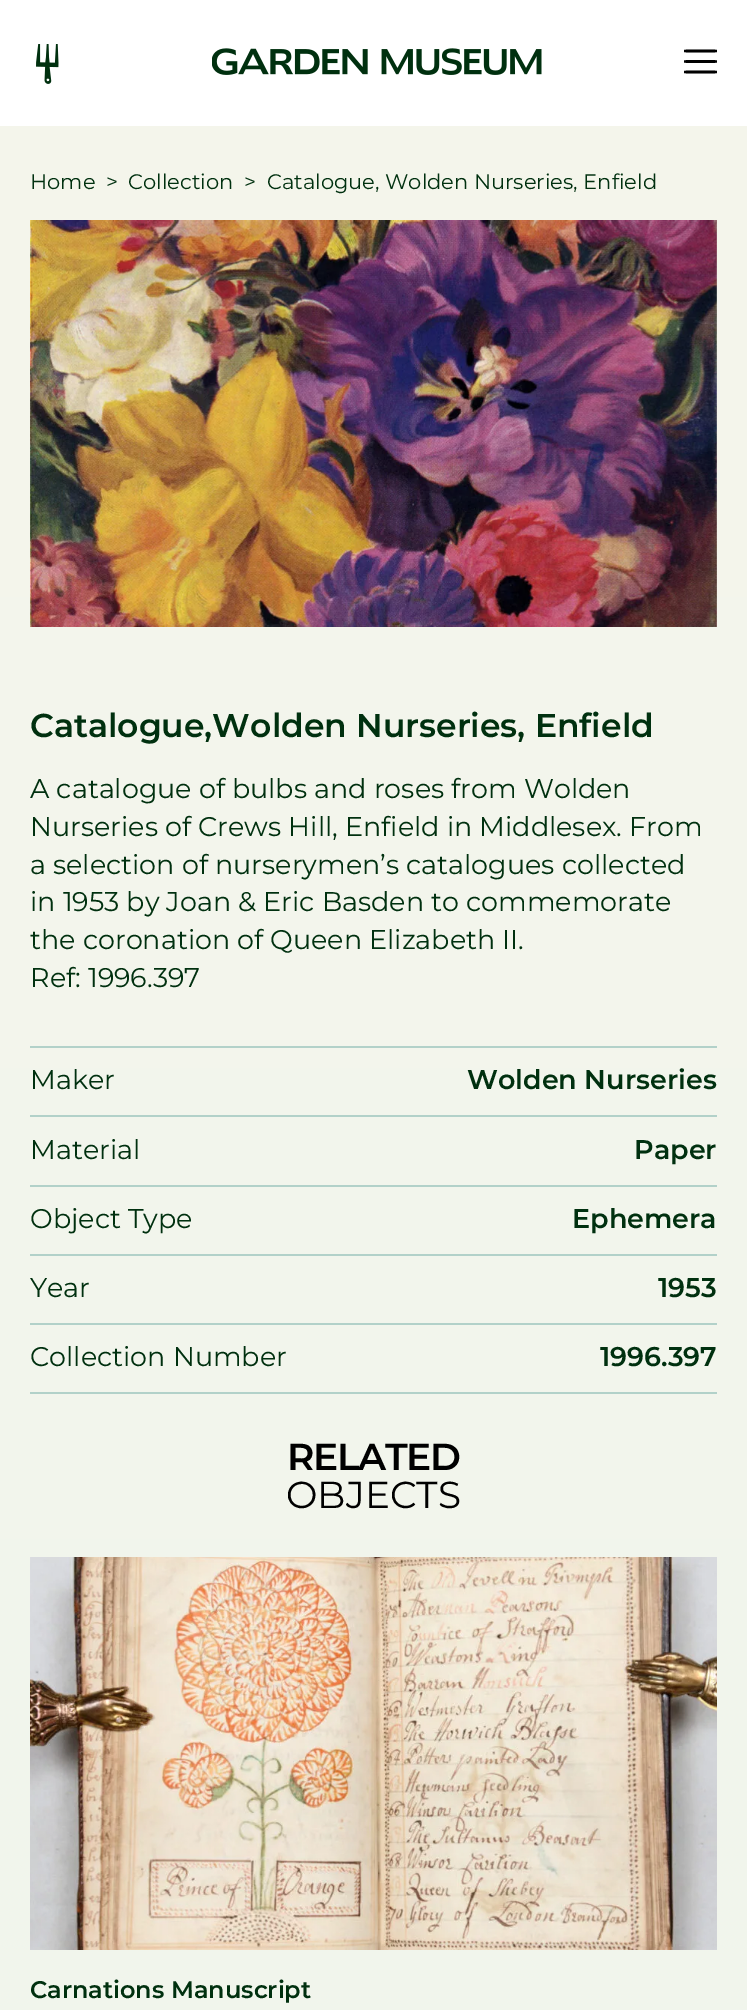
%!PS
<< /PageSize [747 2010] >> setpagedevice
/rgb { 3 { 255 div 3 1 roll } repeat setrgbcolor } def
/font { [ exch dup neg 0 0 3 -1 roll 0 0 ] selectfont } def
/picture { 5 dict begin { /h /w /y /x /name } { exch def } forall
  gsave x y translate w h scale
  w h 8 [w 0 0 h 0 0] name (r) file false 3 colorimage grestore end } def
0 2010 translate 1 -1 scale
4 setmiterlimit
255 255 255 rgb
0 0 747 2010 rectfill
(img/1.rgb) 36 44 23 40 picture
(img/2.rgb) 212 48 330 27 picture
0 0 0 rgb
690.5 60 moveto 710.5 60 lineto 714 60 717 60.5 717 60.5 curveto 717 62.5 lineto 717 62.5 714 63 710.5 63 curveto 690.5 63 lineto 687 63 684 62.5 684 62.5 curveto 684 60.5 lineto 684 60.5 687 60 690.5 60 curveto closepath 690.5 49.5 moveto 710.5 49.5 lineto 714 49.5 717 50 717 50 curveto 717 52 lineto 717 52 714 52.5 710.5 52.5 curveto 690.5 52.5 lineto 687 52.5 684 52 684 52 curveto 684 50 lineto 684 50 687 49.5 690.5 49.5 curveto closepath 690.5 70.5 moveto 710.5 70.5 lineto 714 70.5 717 71 717 71 curveto 717 73 lineto 717 73 714 73.5 710.5 73.5 curveto 690.5 73.5 lineto 687 73.5 684 73 684 73 curveto 684 71 lineto 684 71 687 70.5 690.5 70.5 curveto closepath fill
gsave 0 126 moveto 747 126 lineto 747 2010 lineto 0 2010 lineto closepath clip newpath
<< /ShadingType 2 /ColorSpace /DeviceRGB /Coords [373 0 374 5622] /Extend [true true] /Function << /FunctionType 2 /Domain [0 1] /C0 [0.961 0.961 0.922] /C1 [0.914 0.957 0.941] /N 1 >> >> shfill grestore
(img/3.rgb) 30 220 687 407 picture
[
  [30 1046 687 2 178 209 201]
  [30 1115 687 2 178 209 201]
  [30 1185 687 2 178 209 201]
  [30 1254 687 2 178 209 201]
  [30 1323 687 2 178 209 201]
  [30 1392 687 2 178 209 201]
] { aload pop rgb rectfill } forall
(img/4.rgb) 30 1557 687 393 picture
/Montserrat-Regular 21 font
0 48 15 rgb
[
  [(Home) 30 189]
  [(>) 106 189]
  [(Collection) 128 189]
  [(>) 244 189]
  [(Catalogue, Wolden Nurseries, Enfield) 267 189]
] { aload pop moveto show } forall
/Montserrat-SemiBold 33 font
30 737 moveto (Catalogue,Wolden Nurseries, Enfield) show
/Montserrat-Regular 27 font
[
  [(A catalogue of bulbs and roses from Wolden) 30 798]
  [(Nurseries of Crews Hill, Enfield in Middlesex. From) 30 836]
  [(a selection of nurserymen’s catalogues collected) 30 874]
  [(in 1953 by Joan & Eric Basden to commemorate) 30 911]
  [(the coronation of Queen Elizabeth II.) 30 949]
  [(Ref: 1996.397) 30 987]
  [(Maker) 30 1089]
] { aload pop moveto show } forall
/Montserrat-SemiBold 27 font
467 1089 moveto (Wolden Nurseries) show
/Montserrat-Regular 27 font
30 1159 moveto (Material) show
/Montserrat-SemiBold 27 font
634 1159 moveto (Paper) show
/Montserrat-Regular 27 font
30 1228 moveto (Object Type) show
/Montserrat-SemiBold 27 font
572 1228 moveto (Ephemera) show
/Montserrat-Regular 27 font
30 1297 moveto (Year) show
/Montserrat-SemiBold 27 font
658 1297 moveto (1953) show
/Montserrat-Regular 27 font
30 1366 moveto (Collection Number) show
/Montserrat-SemiBold 27 font
600 1366 moveto (1996.397) show
/Montserrat-SemiBold 37.5 font
0 0 0 rgb
287 1470 moveto -1.25 0 (RELATED) ashow
/Montserrat-Regular 37.5 font
286 1508 moveto (OBJECTS) show
/Montserrat-SemiBold 24 font
0 48 15 rgb
30 1998 moveto (Carnations Manuscript) show
showpage
